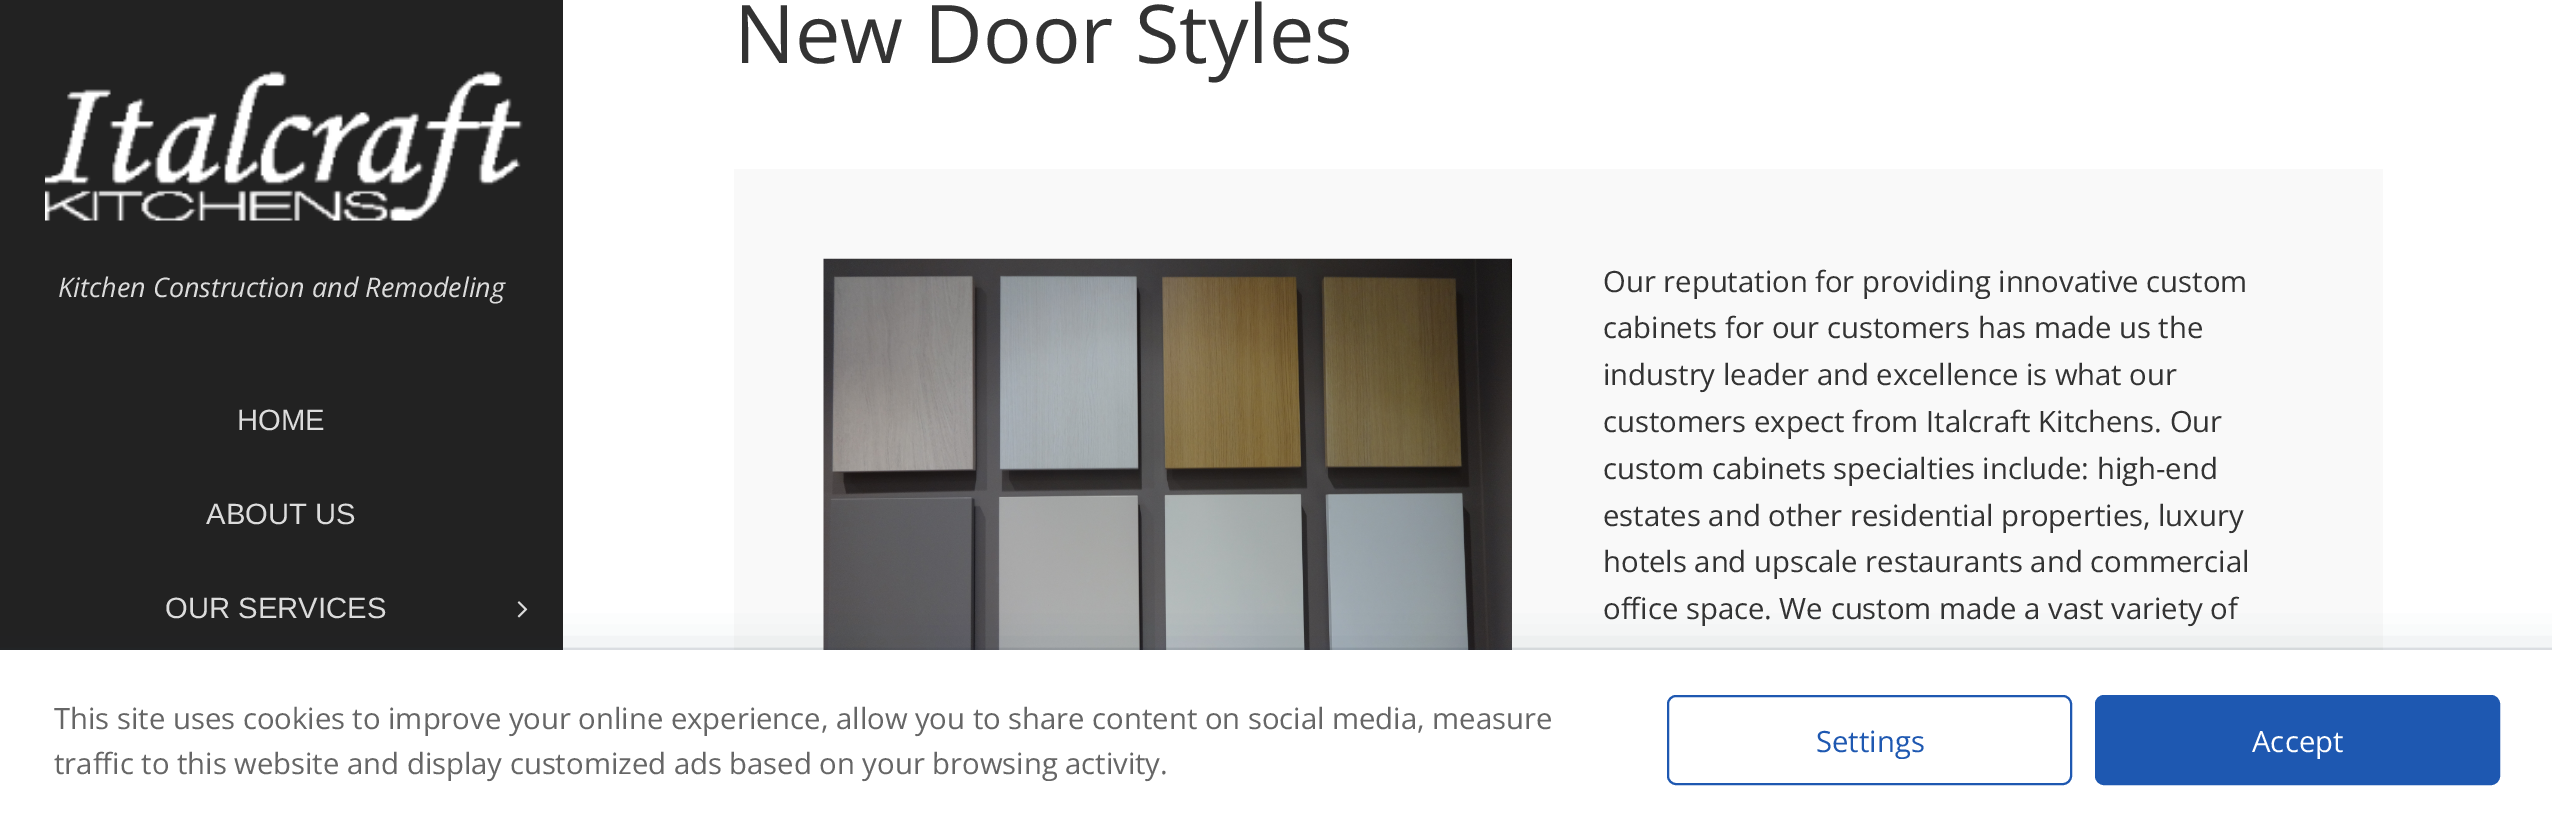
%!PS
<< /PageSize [2552 829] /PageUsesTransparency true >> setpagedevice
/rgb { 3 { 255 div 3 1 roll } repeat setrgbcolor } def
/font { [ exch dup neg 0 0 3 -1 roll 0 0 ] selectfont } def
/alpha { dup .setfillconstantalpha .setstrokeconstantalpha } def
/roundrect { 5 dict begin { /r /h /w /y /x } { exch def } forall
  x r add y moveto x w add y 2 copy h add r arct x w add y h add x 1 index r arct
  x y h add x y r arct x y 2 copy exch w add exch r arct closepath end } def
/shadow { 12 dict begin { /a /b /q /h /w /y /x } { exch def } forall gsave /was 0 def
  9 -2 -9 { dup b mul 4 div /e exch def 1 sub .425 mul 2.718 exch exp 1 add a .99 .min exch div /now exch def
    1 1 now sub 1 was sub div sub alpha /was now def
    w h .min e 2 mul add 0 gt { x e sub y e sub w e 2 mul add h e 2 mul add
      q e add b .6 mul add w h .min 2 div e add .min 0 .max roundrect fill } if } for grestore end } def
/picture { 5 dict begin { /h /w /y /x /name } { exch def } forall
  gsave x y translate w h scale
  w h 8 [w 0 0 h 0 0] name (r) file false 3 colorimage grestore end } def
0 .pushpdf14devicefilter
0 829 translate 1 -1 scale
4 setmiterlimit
34 34 34 rgb
0 0 2552 829 rectfill
(img/1.rgb) 45 71 478 150 picture
(img/2.rgb) 517 601 11 17 picture
255 255 255 rgb
563 0 1989 650 rectfill
249 249 249 rgb
734 169 1649 481 rectfill
(img/3.rgb) 823 258 689 392 picture
36 47 66 rgb
-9 664 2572 153 0 22.5 0.31 shadow
0.08 alpha
2 setlinewidth
-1 649 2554 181 rectstroke
1 alpha
255 255 255 rgb
0 650 2552 179 rectfill
30 88 177 rgb
1668 696 403 88 8 roundrect stroke
2096 696 403 88 8 roundrect gsave fill grestore
stroke
/OpenSans-Italic 27 font
220 220 220 rgb
58 297 moveto (Kitchen Construction and Remodeling) show
/LiberationSans-Regular 29.25 font
[
  [(HOME) 237 430]
  [(ABOUT US) 206 524]
  [(OUR SERVICES) 165 618]
] { aload pop moveto show } forall
/OpenSans-Regular 81 font
51 51 51 rgb
734 63 moveto (New Door Styles) show
/OpenSans-Regular 29.25 font
[
  [(Our reputation for providing innovative custom) 1603 292]
  [(cabinets for our customers has made us the) 1603 338]
  [(industry leader and excellence is what our) 1603 385]
  [(customers expect from Italcraft Kitchens. Our) 1603 432]
  [(custom cabinets specialties include: high-end) 1603 479]
  [(estates and other residential properties, luxury) 1603 526]
  [(hotels and upscale restaurants and commercial) 1603 572]
  [(office space. We custom made a vast variety of) 1603 619]
] { aload pop moveto show } forall
102 102 102 rgb
54 729 moveto (This site uses cookies to improve your online experience, allow you to share content on social media, measure) show
54 774 moveto (traffic to this website and display customized ads based on your browsing activity.) show
30 88 177 rgb
1816 752 moveto (Settings) show
255 255 255 rgb
2252 752 moveto (Accept) show
.poppdf14devicefilter showpage
